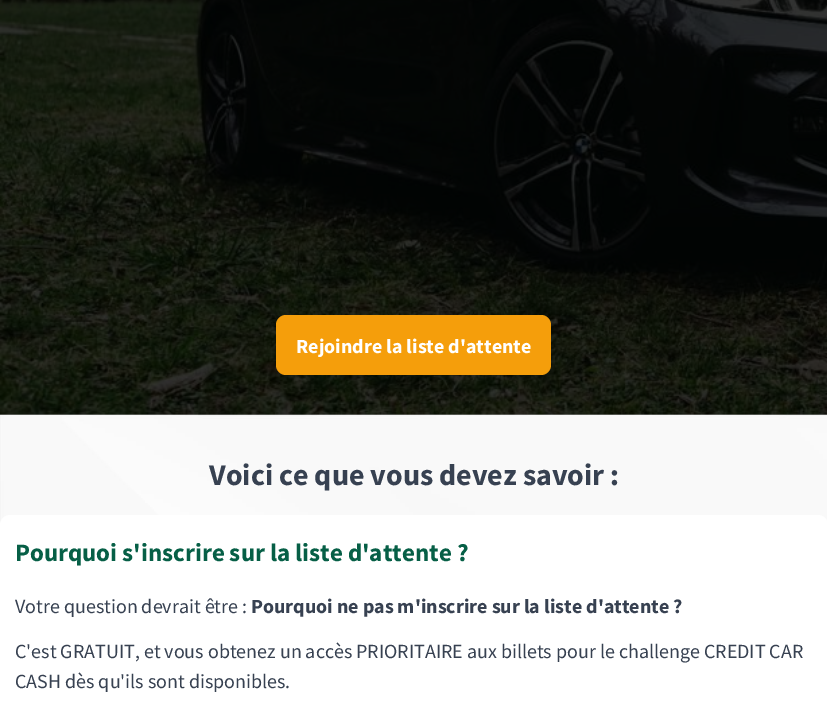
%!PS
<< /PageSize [827 721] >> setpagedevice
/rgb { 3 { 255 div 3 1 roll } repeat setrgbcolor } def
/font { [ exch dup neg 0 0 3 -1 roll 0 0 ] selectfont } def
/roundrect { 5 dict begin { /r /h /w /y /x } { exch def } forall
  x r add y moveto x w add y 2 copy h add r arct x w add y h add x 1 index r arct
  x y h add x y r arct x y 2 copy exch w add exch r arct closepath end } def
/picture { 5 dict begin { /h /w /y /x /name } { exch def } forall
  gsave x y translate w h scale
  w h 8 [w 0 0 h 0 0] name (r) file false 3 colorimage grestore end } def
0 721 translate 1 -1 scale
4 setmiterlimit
255 255 255 rgb
0 0 827 721 rectfill
(img/1.rgb) 0 0 827 415 picture
245 158 11 rgb
276 315 275 60 10 roundrect fill
(img/2.rgb) 0 414 827 111 picture
255 255 255 rgb
0 515 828 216 10 roundrect fill
/SourceSansPro-Bold 20 font
296 353 moveto (Rejoindre la liste d'attente) show
/SourceSansPro-Bold 30 font
55 65 81 rgb
209 485 moveto (Voici ce que vous devez savoir :) show
/SourceSansPro-Bold 25 font
6 95 70 rgb
15 561 moveto (Pourquoi s'inscrire sur la liste d'attente ?) show
/SourceSansPro-Regular 20 font
55 65 81 rgb
15 613 moveto (Votre question devrait être :) show
/SourceSansPro-Bold 20 font
251 613 moveto (Pourquoi ne pas m'inscrire sur la liste d'attente ?) show
/SourceSansPro-Regular 20 font
15 658 moveto (C'est GRATUIT, et vous obtenez un accès PRIORITAIRE aux billets pour le challenge CREDIT CAR) show
15 688 moveto (CASH dès qu'ils sont disponibles.) show
showpage
